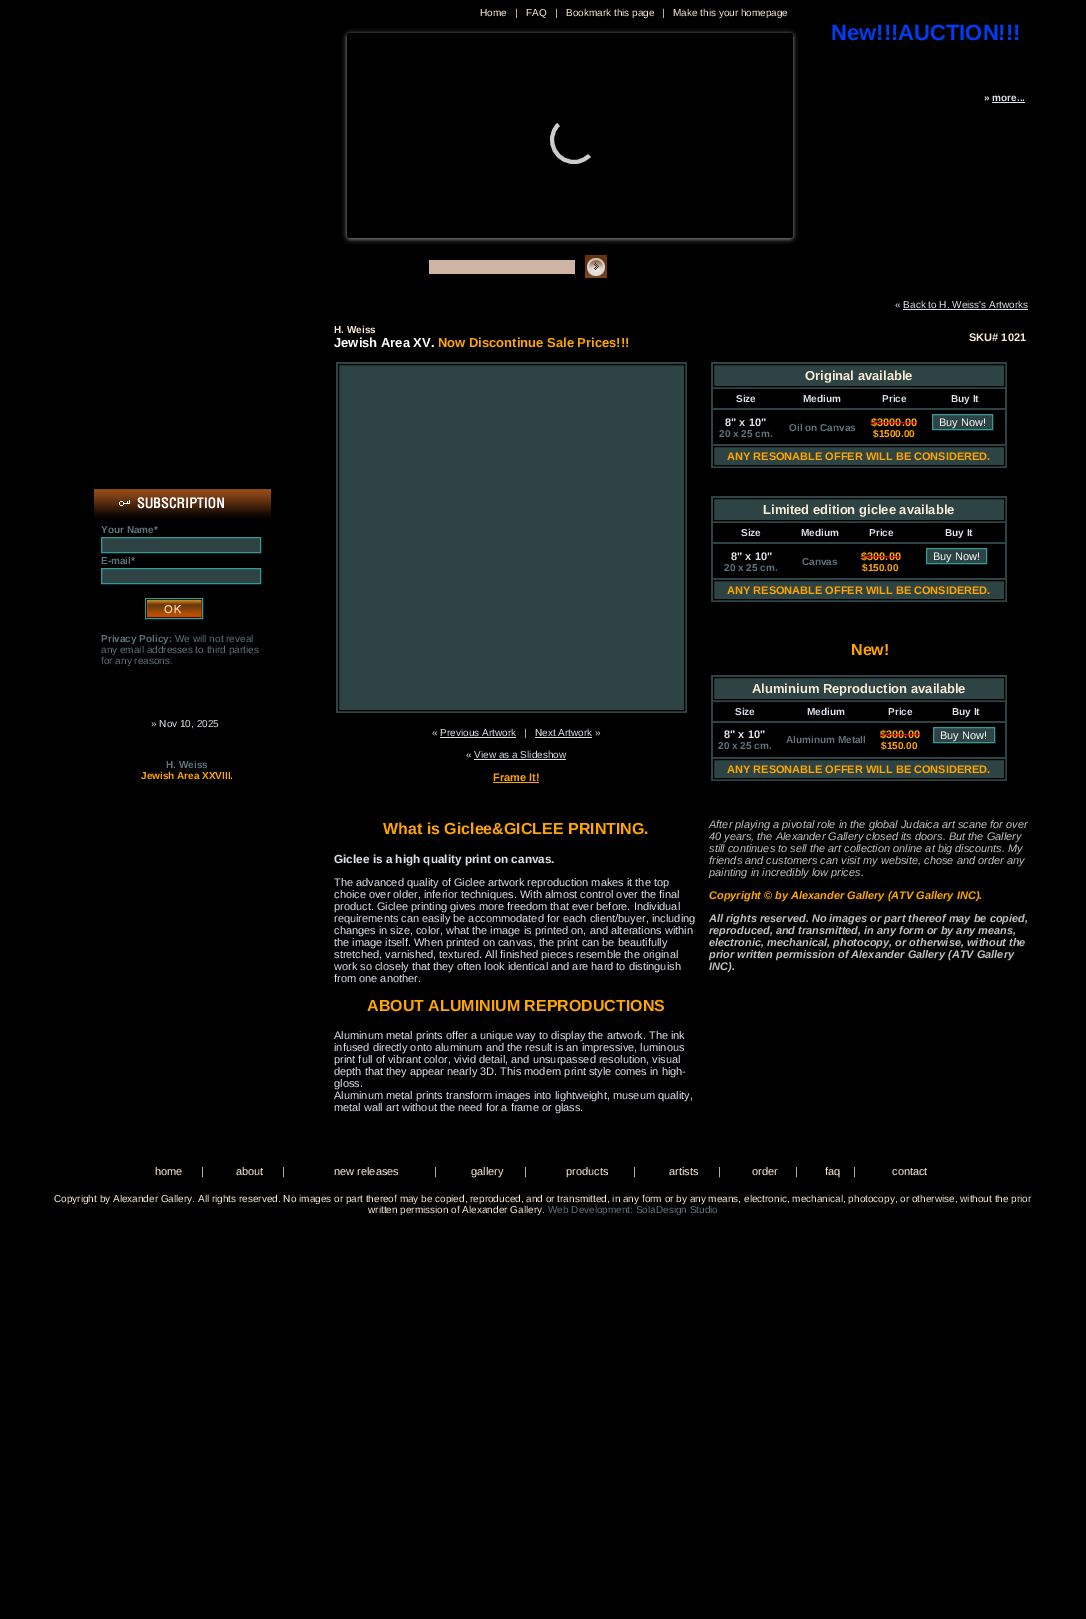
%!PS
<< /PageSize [1086 1619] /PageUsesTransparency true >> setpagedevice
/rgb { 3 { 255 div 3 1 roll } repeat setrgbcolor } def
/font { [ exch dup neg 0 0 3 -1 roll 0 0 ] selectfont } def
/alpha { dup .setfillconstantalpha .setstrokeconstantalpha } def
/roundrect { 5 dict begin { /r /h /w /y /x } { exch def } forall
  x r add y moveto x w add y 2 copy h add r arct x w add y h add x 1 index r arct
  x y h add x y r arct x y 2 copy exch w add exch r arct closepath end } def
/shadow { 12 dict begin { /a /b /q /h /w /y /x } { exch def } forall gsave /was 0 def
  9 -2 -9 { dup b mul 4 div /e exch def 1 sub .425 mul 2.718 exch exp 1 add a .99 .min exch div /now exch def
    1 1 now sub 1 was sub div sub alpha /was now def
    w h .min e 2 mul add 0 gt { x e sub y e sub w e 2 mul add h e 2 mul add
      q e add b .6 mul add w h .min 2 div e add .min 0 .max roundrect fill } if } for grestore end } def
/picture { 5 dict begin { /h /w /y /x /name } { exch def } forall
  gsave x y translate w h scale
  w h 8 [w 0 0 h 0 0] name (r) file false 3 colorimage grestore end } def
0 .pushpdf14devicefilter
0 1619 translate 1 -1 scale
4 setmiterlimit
0 0 0 rgb
0 0 1086 1619 rectfill
219 225 231 rgb
992 102 33 1 rectfill
153 153 153 rgb
347 34 446 205 3 2.5 1 shadow
0 0 0 rgb
347 33 446 205 3 roundrect fill
204 204 204 rgb
4 setlinewidth
589.5 155.5 moveto 586.5 158.5 582.5 160.5 578.5 161.5 curveto 557 166 543 139.5 558.5 124.5 curveto stroke
0.3 alpha
0 0 0 rgb
347 236 446 2 rectfill
1 alpha
205 180 163 rgb
429 260 146 14 rectfill
(img/1.rgb) 585 255 22 23 picture
(img/2.rgb) 94 489 177 30 picture
46 67 67 rgb
101.5 537.5 moveto 260.5 537.5 lineto 260.5 552.5 lineto 101.5 552.5 lineto closepath gsave fill grestore
51 153 153 rgb
1 setlinewidth
stroke
46 67 67 rgb
101.5 568.5 moveto 260.5 568.5 lineto 260.5 583.5 lineto 101.5 583.5 lineto closepath gsave fill grestore
51 153 153 rgb
stroke
145.5 598.5 57 20 rectstroke
(img/3.rgb) 146 599 56 19 picture
219 225 231 rgb
903 309 125 1 rectfill
46 67 67 rgb
336 362 351 351 rectfill
0 0 0 rgb
338.5 364.5 346 346 rectstroke
[
  [440 737 76 1 219 225 231]
  [535 737 57 1 219 225 231]
  [474 759 92 1 219 225 231]
  [493 782 46 1 255 165 0]
  [711 362 296 106 46 67 67]
] { aload pop rgb rectfill } forall
0 0 0 rgb
713.5 364.5 291 22 rectstroke
713 389 292 19 rectfill
713 410 292 34 rectfill
46 67 67 rgb
932.5 414.5 moveto 992.5 414.5 lineto 992.5 429.5 lineto 932.5 429.5 lineto closepath gsave fill grestore
51 153 153 rgb
stroke
0 0 0 rgb
713.5 446.5 291 19 rectstroke
46 67 67 rgb
711 496 296 106 rectfill
0 0 0 rgb
713.5 498.5 291 22 rectstroke
713 523 292 19 rectfill
713 544 292 34 rectfill
46 67 67 rgb
926.5 548.5 moveto 986.5 548.5 lineto 986.5 563.5 lineto 926.5 563.5 lineto closepath gsave fill grestore
51 153 153 rgb
stroke
0 0 0 rgb
713.5 580.5 291 19 rectstroke
46 67 67 rgb
711 675 296 106 rectfill
0 0 0 rgb
713.5 677.5 291 22 rectstroke
713 702 292 19 rectfill
713 723 292 34 rectfill
46 67 67 rgb
933.5 727.5 moveto 994.5 727.5 lineto 994.5 742.5 lineto 933.5 742.5 lineto closepath gsave fill grestore
51 153 153 rgb
stroke
0 0 0 rgb
713.5 759.5 291 19 rectstroke
/LiberationSans-Regular 10 font
250 235 215 rgb
[
  [(Home) 480 16]
  [(|) 515 16]
  [(FAQ) 526 16]
  [(|) 555 16]
  [(Bookmark this page) 566 16]
  [(|) 662 16]
  [(Make this your homepage) 673 16]
] { aload pop moveto show } forall
/LiberationSans-Bold 22 font
0 60 240 rgb
831 40 moveto (New!!!AUCTION!!!) show
/LiberationSans-Bold 10 font
219 225 231 rgb
984 101 moveto (» more...) show
96 114 123 rgb
[
  [(Your Name*) 101 533]
  [(E-mail*) 101 564]
  [(Privacy Policy:) 101 642]
] { aload pop moveto show } forall
/LiberationSans-Regular 10 font
[
  [(We will not reveal) 175 642]
  [(any email addresses to third parties) 101 653]
  [(for any reasons.) 101 664]
] { aload pop moveto show } forall
219 225 231 rgb
151 727 moveto (» Nov 10, 2025) show
/LiberationSans-Bold 10 font
96 114 123 rgb
166 768 moveto (H. Weiss) show
255 165 0 rgb
141 779 moveto (Jewish Area XXVIII.) show
/LiberationSans-Regular 10 font
219 225 231 rgb
895 308 moveto (« Back to H. Weiss's Artworks) show
/LiberationSans-Bold 10 font
250 235 215 rgb
334 333 moveto (H. Weiss) show
/LiberationSans-Bold 13 font
255 255 255 rgb
334 347 moveto (Jewish Area XV.) show
255 165 0 rgb
438 347 moveto (Now Discontinue Sale Prices!!!) show
/LiberationSans-Bold 11 font
250 235 215 rgb
969 341 moveto (SKU# 1021) show
/LiberationSans-Regular 10 font
219 225 231 rgb
[
  [(« Previous Artwork) 432 736]
  [(|) 524 736]
  [(Next Artwork ») 535 736]
  [(« View as a Slideshow) 466 758]
] { aload pop moveto show } forall
/LiberationSans-Bold 11 font
255 165 0 rgb
493 781 moveto (Frame It!) show
/LiberationSans-Bold 16 font
383 834 moveto (What is Giclee&GICLEE PRINTING.) show
/LiberationSans-Bold 11.75 font
219 225 231 rgb
334 863 moveto (Giclee is a high quality print on canvas.) show
/LiberationSans-Regular 11 font
[
  [(The advanced quality of Giclee artwork reproduction makes it the top) 334 886]
  [(choice over older, inferior techniques. With almost control over the final) 334 898]
  [(product. Giclee printing gives more freedom that ever before. Individual) 334 910]
  [(requirements can easily be accommodated for each client/buyer, including) 334 922]
  [(changes in size, color, what the image is printed on, and alterations within) 334 934]
  [(the image itself. When printed on canvas, the print can be beautifully) 334 946]
  [(stretched, varnished, textured. All finished pieces resemble the original) 334 958]
  [(work so closely that they often look identical and are hard to distinguish) 334 970]
  [(from one another.) 334 982]
] { aload pop moveto show } forall
/LiberationSans-Bold 16 font
255 165 0 rgb
367 1011 moveto (ABOUT ALUMINIUM REPRODUCTIONS) show
/LiberationSans-Regular 11 font
219 225 231 rgb
[
  [(Aluminum metal prints offer a unique way to display the artwork. The ink) 334 1039]
  [(infused directly onto aluminum and the result is an impressive, luminous) 334 1051]
  [(print full of vibrant color, vivid detail, and unsurpassed resolution, visual) 334 1063]
  [(depth that they appear nearly 3D. This modern print style comes in high-) 334 1075]
  [(gloss.) 334 1087]
  [(Aluminum metal prints transform images into lightweight, museum quality,) 334 1099]
  [(metal wall art without the need for a frame or glass.) 334 1111]
] { aload pop moveto show } forall
/LiberationSans-Bold 13 font
250 235 215 rgb
805 380 moveto (Original available) show
/LiberationSans-Bold 10 font
219 225 231 rgb
[
  [(Size) 736 402]
  [(Medium) 803 402]
  [(Price) 882 402]
  [(Buy It) 951 402]
] { aload pop moveto show } forall
/LiberationSans-Bold 11 font
725 426 moveto (8" x 10") show
/LiberationSans-Bold 10 font
96 114 123 rgb
719 437 moveto (20 x 25 cm.) show
789 431 moveto (Oil on Canvas) show
/LiberationSans-Bold 11 font
255 165 0 rgb
871 426 moveto ($3000.00) show
255 0 0 rgb
871 422 46 1 rectfill
/LiberationSans-Bold 10 font
255 165 0 rgb
873 437 moveto ($1500.00) show
/LiberationSans-Regular 11 font
255 255 255 rgb
939 426 moveto (Buy Now!) show
/LiberationSans-Bold 11 font
255 165 0 rgb
727 460 moveto (ANY RESONABLE OFFER WILL BE CONSIDERED.) show
/LiberationSans-Bold 13 font
250 235 215 rgb
763 514 moveto (Limited edition giclee available) show
/LiberationSans-Bold 10 font
219 225 231 rgb
[
  [(Size) 741 536]
  [(Medium) 801 536]
  [(Price) 869 536]
  [(Buy It) 945 536]
] { aload pop moveto show } forall
/LiberationSans-Bold 11 font
731 560 moveto (8" x 10") show
/LiberationSans-Bold 10 font
96 114 123 rgb
724 571 moveto (20 x 25 cm.) show
802 565 moveto (Canvas) show
/LiberationSans-Bold 11 font
255 165 0 rgb
861 560 moveto ($300.00) show
255 0 0 rgb
861 556 40 1 rectfill
/LiberationSans-Bold 10 font
255 165 0 rgb
862 571 moveto ($150.00) show
/LiberationSans-Regular 11 font
255 255 255 rgb
933 560 moveto (Buy Now!) show
/LiberationSans-Bold 11 font
255 165 0 rgb
727 594 moveto (ANY RESONABLE OFFER WILL BE CONSIDERED.) show
/LiberationSans-Bold 16 font
851 655 moveto (New!) show
/LiberationSans-Bold 13 font
250 235 215 rgb
752 693 moveto (Aluminium Reproduction available) show
/LiberationSans-Bold 10 font
219 225 231 rgb
[
  [(Size) 735 715]
  [(Medium) 807 715]
  [(Price) 888 715]
  [(Buy It) 952 715]
] { aload pop moveto show } forall
/LiberationSans-Bold 11 font
724 738 moveto (8" x 10") show
/LiberationSans-Bold 10 font
96 114 123 rgb
718 749 moveto (20 x 25 cm.) show
786 743 moveto (Aluminum Metall) show
/LiberationSans-Bold 11 font
255 165 0 rgb
880 738 moveto ($300.00) show
255 0 0 rgb
880 734 40 1 rectfill
/LiberationSans-Bold 10 font
255 165 0 rgb
881 749 moveto ($150.00) show
/LiberationSans-Regular 11 font
255 255 255 rgb
940 739 moveto (Buy Now!) show
/LiberationSans-Bold 11 font
255 165 0 rgb
727 773 moveto (ANY RESONABLE OFFER WILL BE CONSIDERED.) show
/LiberationSans-Italic 11 font
192 192 192 rgb
[
  [(After playing a pivotal role in the global Judaica art scane for over) 709 828]
  [(40 years, the Alexander Gallery closed its doors. But the Gallery) 709 840]
  [(still continues to sell the art collection online at big discounts. My) 709 852]
  [(friends and customers can visit my website, chose and order any) 709 864]
  [(painting in incredibly low prices.) 709 876]
] { aload pop moveto show } forall
/LiberationSans-BoldItalic 11 font
255 165 0 rgb
709 899 moveto (Copyright © by Alexander Gallery \(ATV Gallery INC\).) show
192 192 192 rgb
[
  [(All rights reserved. No images or part thereof may be copied,) 709 922]
  [(reproduced, and transmitted, in any form or by any means,) 709 934]
  [(electronic, mechanical, photocopy, or otherwise, without the) 709 946]
  [(prior written permission of Alexander Gallery \(ATV Gallery) 709 958]
  [(INC\).) 709 970]
] { aload pop moveto show } forall
/LiberationSans-Regular 11 font
250 235 215 rgb
[
  [(home) 155 1175]
  [(|) 201 1175]
  [(about) 236 1175]
  [(|) 282 1175]
  [(new releases) 334 1175]
  [(|) 434 1175]
  [(gallery) 471 1175]
  [(|) 524 1175]
  [(products) 566 1175]
  [(|) 633 1175]
  [(artists) 669 1175]
  [(|) 718 1175]
  [(order) 752 1175]
  [(|) 795 1175]
  [(faq) 825 1175]
  [(|) 853 1175]
  [(contact) 892 1175]
] { aload pop moveto show } forall
/LiberationSans-Regular 10 font
54 1202 moveto (Copyright by Alexander Gallery. All rights reserved. No images or part thereof may be copied, reproduced, and or transmitted, in any form or by any means, electronic, mechanical, photocopy, or otherwise, without the prior) show
368 1213 moveto (written permission of Alexander Gallery.) show
96 114 123 rgb
548 1213 moveto (Web Development: SolaDesign Studio) show
.poppdf14devicefilter showpage
